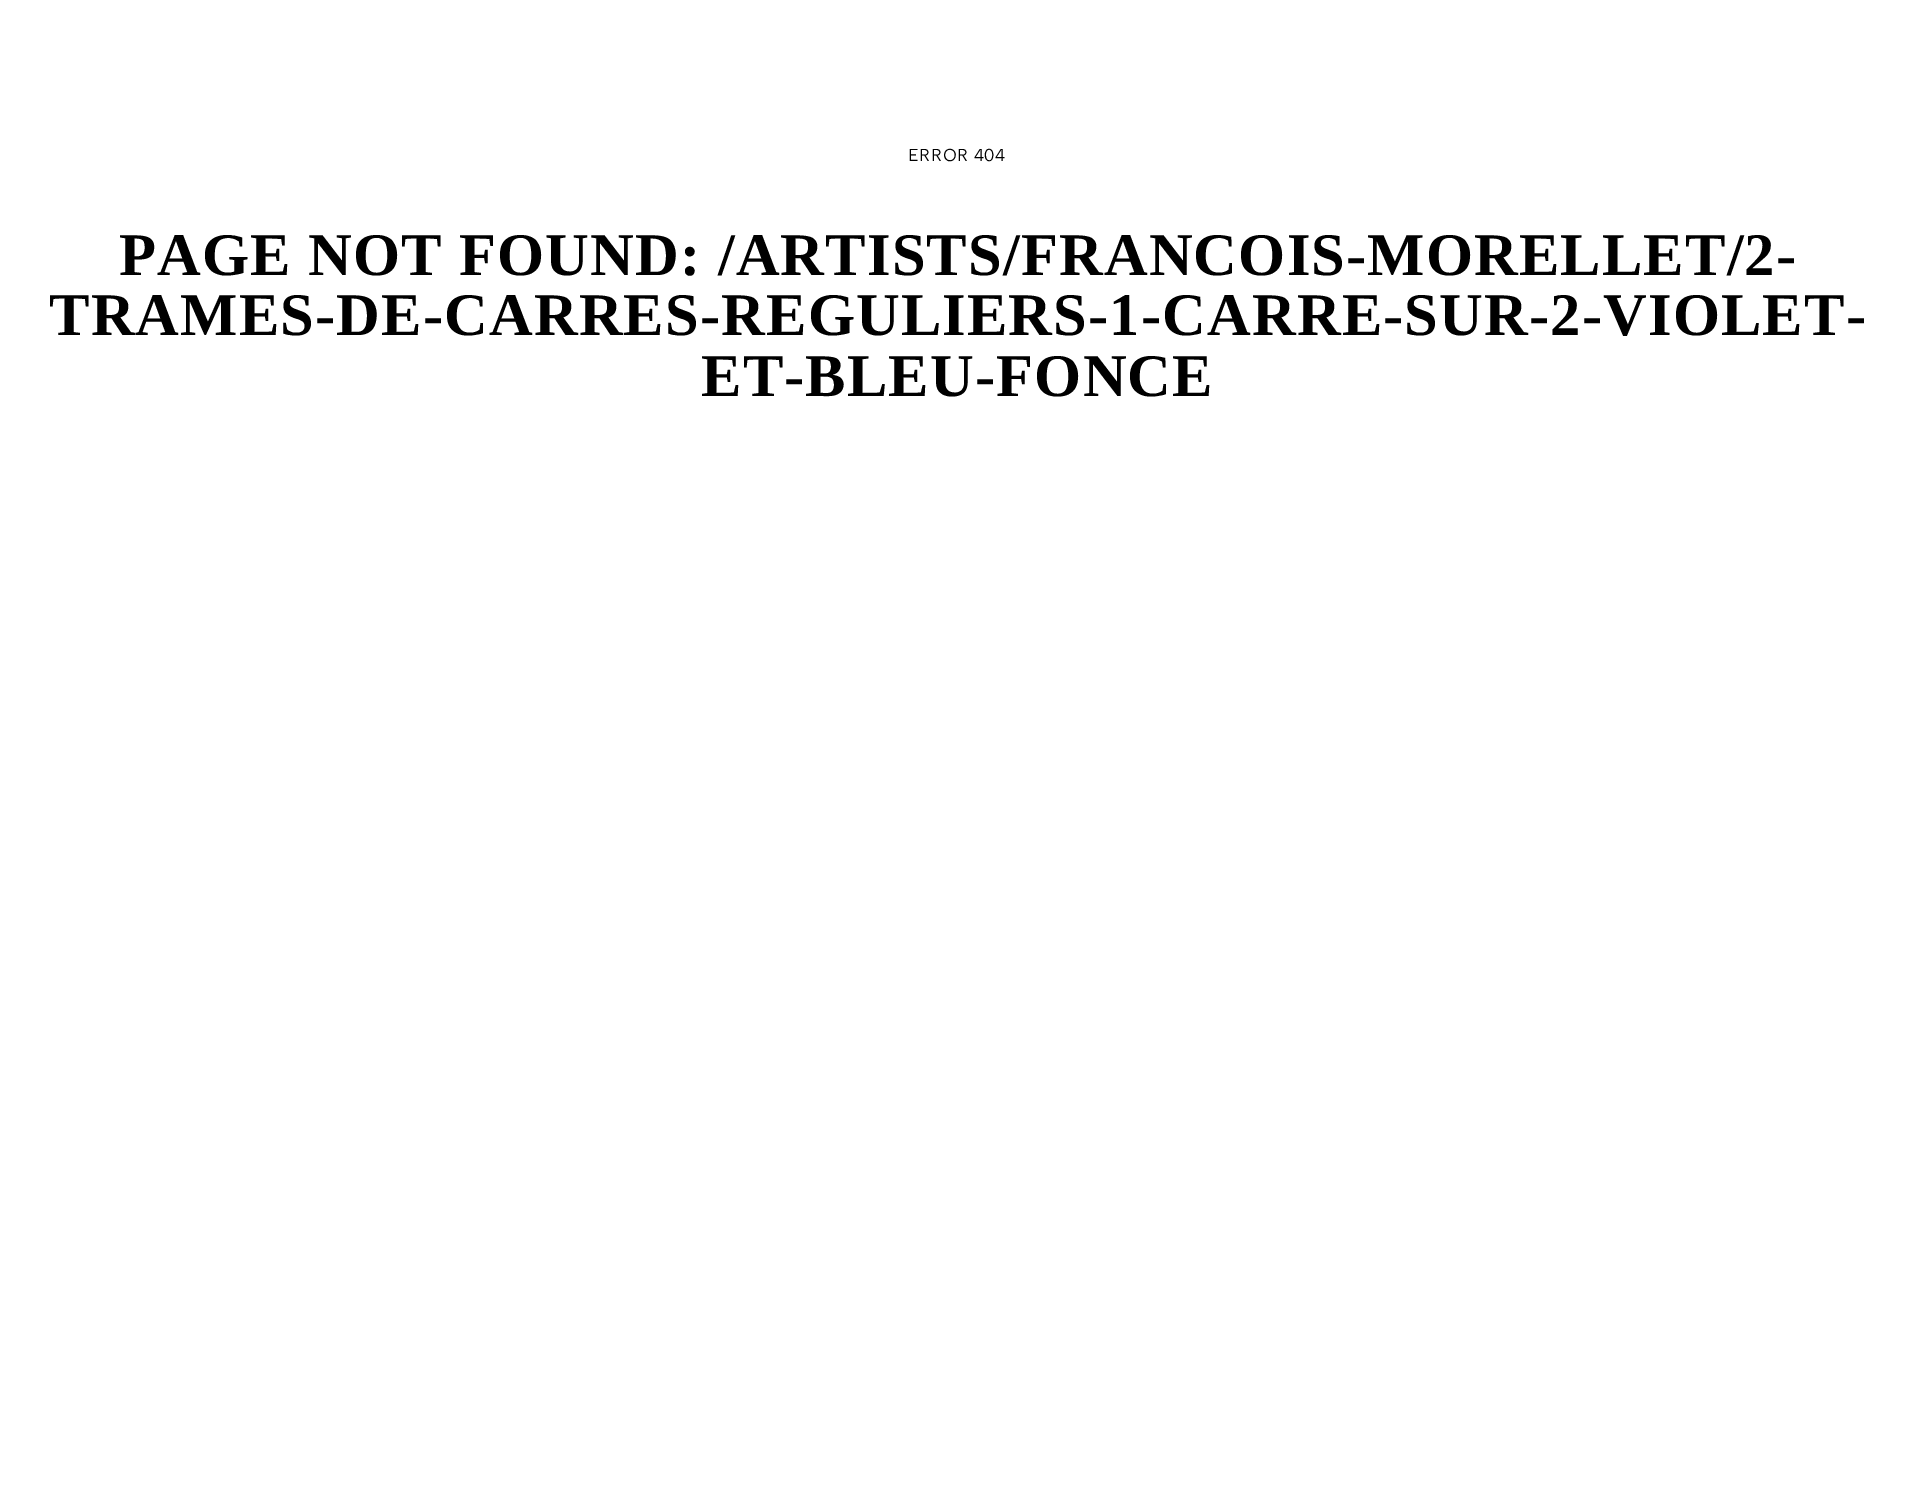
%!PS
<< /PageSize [1914 1492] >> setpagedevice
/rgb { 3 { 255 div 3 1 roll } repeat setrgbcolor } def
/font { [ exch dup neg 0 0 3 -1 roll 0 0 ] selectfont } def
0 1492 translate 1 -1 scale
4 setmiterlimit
255 255 255 rgb
0 0 1914 1492 rectfill
/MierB-Regular 17.25 font
0 0 0 rgb
908 161 moveto 0.75 0 (ERROR 404) ashow
/LiberationSerif-Bold 60.55 font
119 275 moveto 1.15 0 (PAGE NOT FOUND: /ARTISTS/FRANCOIS-MORELLET/2-) ashow
49 335 moveto 1.15 0 (TRAMES-DE-CARRES-REGULIERS-1-CARRE-SUR-2-VIOLET-) ashow
701 396 moveto 1.15 0 (ET-BLEU-FONCE) ashow
showpage
